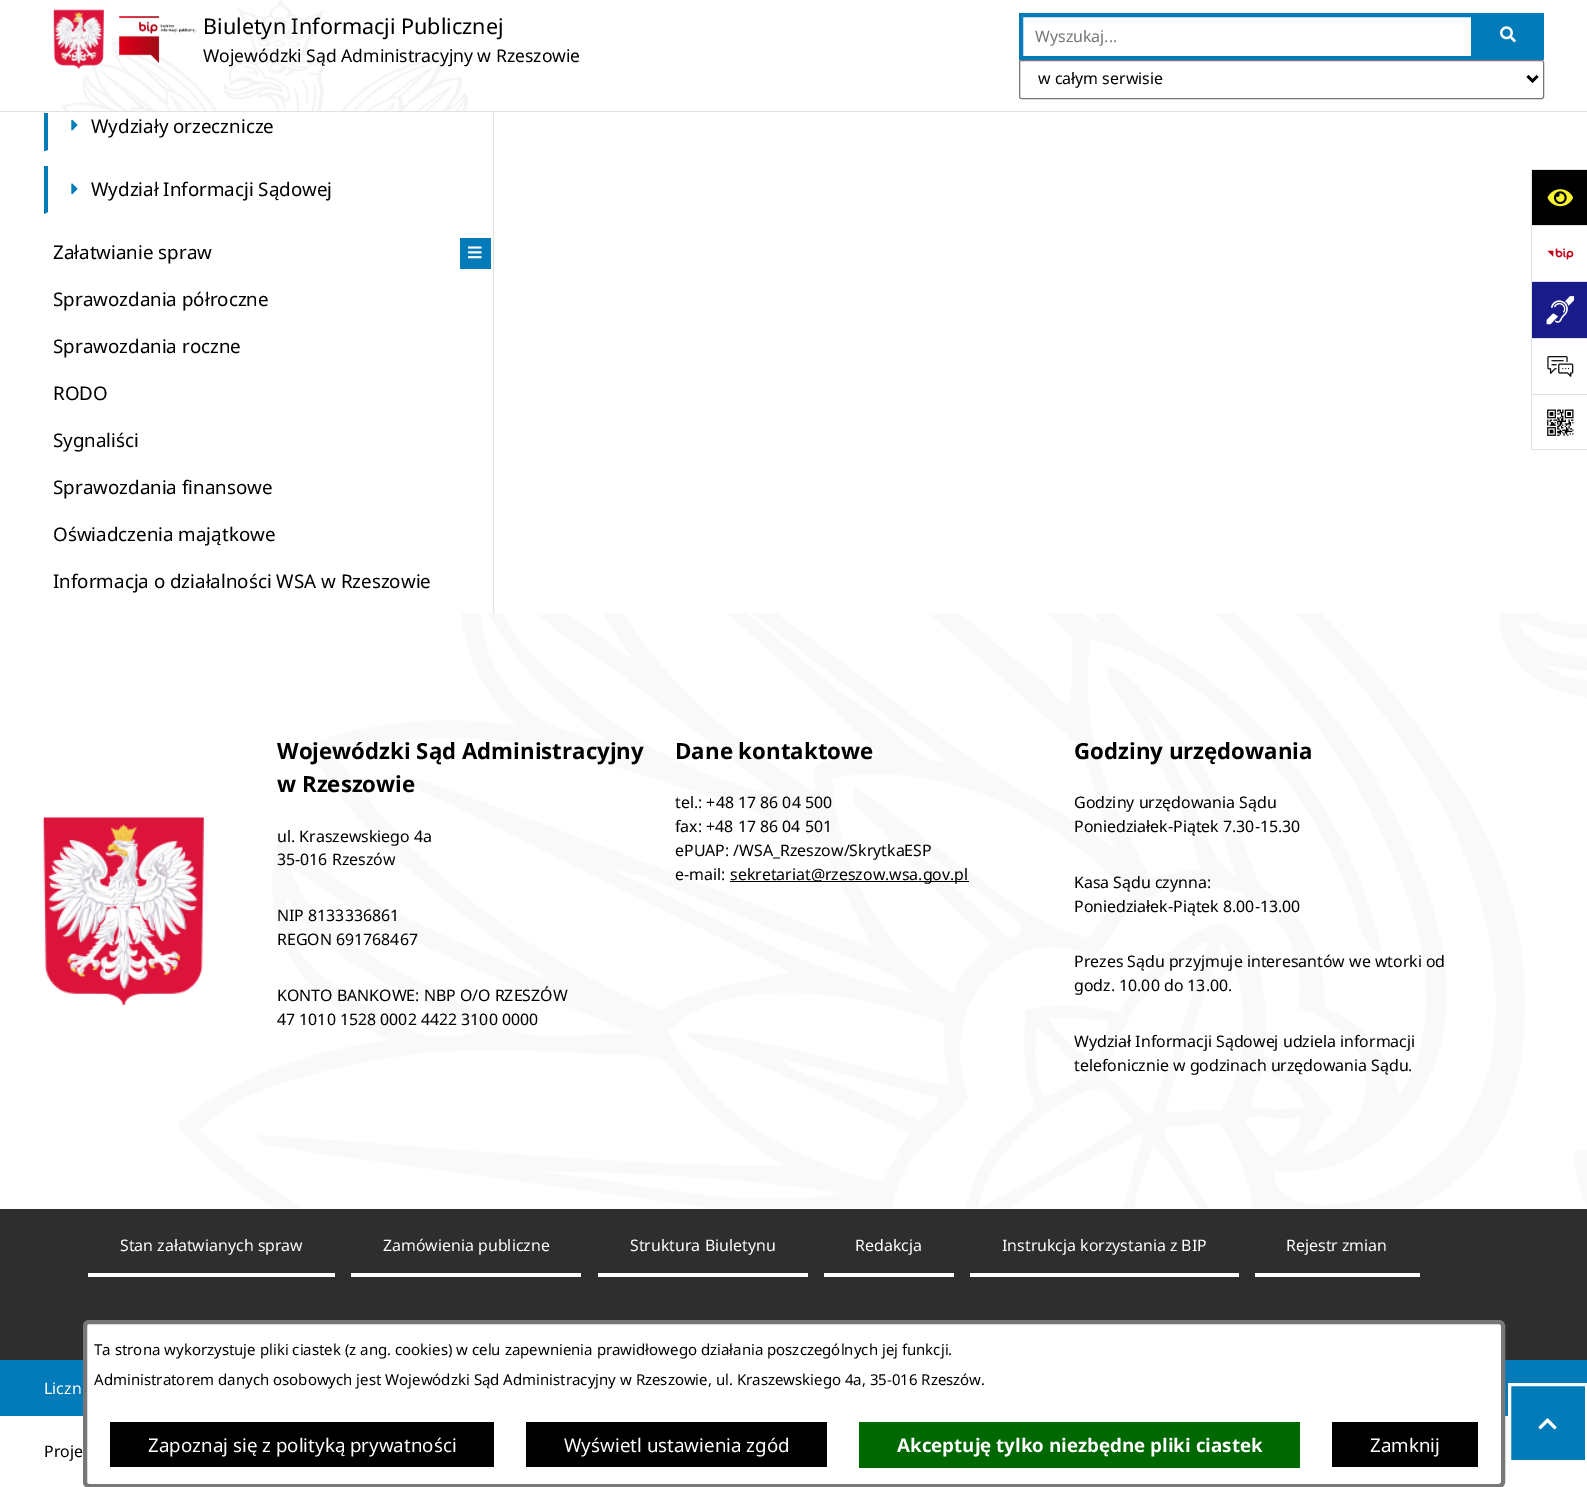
%!PS
<< /PageSize [1587 1487] >> setpagedevice
/rgb { 3 { 255 div 3 1 roll } repeat setrgbcolor } def
/font { [ exch dup neg 0 0 3 -1 roll 0 0 ] selectfont } def
/roundrect { 5 dict begin { /r /h /w /y /x } { exch def } forall
  x r add y moveto x w add y 2 copy h add r arct x w add y h add x 1 index r arct
  x y h add x y r arct x y 2 copy exch w add exch r arct closepath end } def
/picture { 5 dict begin { /h /w /y /x /name } { exch def } forall
  gsave x y translate w h scale
  w h 8 [w 0 0 h 0 0] name (r) file false 3 colorimage grestore end } def
0 1487 translate 1 -1 scale
4 setmiterlimit
255 255 255 rgb
0 0 1587 1487 rectfill
2 123 184 rgb
44 151 moveto 44 102 lineto 48 102 lineto 48 150 lineto closepath fill
255 255 255 rgb
44 102 4 11 rectfill
225 225 225 rgb
0 111 1587 1 rectfill
(img/1.rgb) 62 0 406 111 picture
(img/2.rgb) 53 9 51 60 picture
(img/3.rgb) 119 16 77 47 picture
2 123 184 rgb
4 setlinewidth
1021 15 452 43 rectstroke
1475 13 69 47 rectfill
(img/4.rgb) 1500 26 16 17 picture
118 118 118 rgb
1 setlinewidth
1019.5 60.5 524 38 2 roundrect stroke
0 0 0 rgb
2.5 setlinewidth
1527.5 76 moveto 1532.5 81 lineto 1537.5 76 lineto stroke
(img/5.rgb) 71 119 7 12 picture
2 123 184 rgb
44 214 moveto 44 166 lineto 48 166 lineto 48 212 lineto closepath fill
(img/6.rgb) 71 183 7 12 picture
460 238 31 31 rectfill
(img/7.rgb) 468 246 14 13 picture
[
  [493 113 1 500 225 225 225]
  [1532 170 55 55 0 0 0]
  [1531 169 56 1 225 225 225]
  [1531 169 1 56 225 225 225]
] { aload pop rgb rectfill } forall
(img/8.rgb) 1547 189 27 18 picture
1531 225 56 1 rectfill
1531 225 1 56 rectfill
(img/9.rgb) 1547 248 27 12 picture
[
  [1532 282 55 56 25 27 138]
  [1531 281 56 1 225 225 225]
  [1531 281 1 57 225 225 225]
] { aload pop rgb rectfill } forall
(img/10.rgb) 1546 296 29 29 picture
1531 338 56 1 rectfill
1531 338 1 56 rectfill
(img/11.rgb) 1547 356 27 21 picture
[
  [1531 394 56 1 225 225 225]
  [1531 449 56 1 225 225 225]
  [1531 394 1 56 225 225 225]
] { aload pop rgb rectfill } forall
(img/12.rgb) 1547 409 27 27 picture
(img/13.rgb) 177 613 1410 596 picture
(img/14.rgb) 43 817 161 188 picture
[
  [730 881 239 1 0 0 0]
  [0 1209 1587 151 46 46 46]
  [88 1273 247 4 255 255 255]
  [351 1273 230 4 255 255 255]
  [598 1273 210 4 255 255 255]
  [824 1273 130 4 255 255 255]
  [970 1273 269 4 255 255 255]
  [1255 1273 165 4 255 255 255]
  [0 1360 1587 56 2 123 184]
  [1511 1416 74 44 2 123 184]
] { aload pop rgb rectfill } forall
255 255 255 rgb
3 setlinewidth
1509.5 1384.5 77 77 rectstroke
(img/15.rgb) 1538 1418 19 12 picture
85 1322 1418 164 4 roundrect gsave fill grestore
120 120 120 rgb
4 setlinewidth
stroke
[
  [110 1422 384 45 0 0 0]
  [526 1422 301 45 0 0 0]
  [859 1422 441 46 0 104 0]
  [1332 1422 146 45 0 0 0]
] { aload pop rgb rectfill } forall
/NotoSans-Regular 21.6 font
203 34 moveto (Biuletyn Informacji Publicznej) show
/NotoSans-Regular 17.55 font
203 62 moveto (Wojewódzki Sąd Administracyjny w Rzeszowie) show
/NotoSans-Regular 15.9 font
117 117 117 rgb
1035 42 moveto (Wyszukaj...) show
0 0 0 rgb
1038 84 moveto (w całym serwisie) show
/NotoSans-Regular 18.75 font
[
  [(Wydziały orzecznicze) 91 133]
  [(Wydział Informacji Sądowej) 91 196]
  [(Załatwianie spraw) 53 259]
  [(Sprawozdania półroczne) 53 306]
  [(Sprawozdania roczne) 53 353]
  [(RODO) 53 400]
  [(Sygnaliści) 53 447]
  [(Sprawozdania finansowe) 53 494]
  [(Oświadczenia majątkowe) 53 541]
  [(Informacja o działalności WSA w Rzeszowie) 53 588]
] { aload pop moveto show } forall
/NotoSans-Bold 22.25 font
277 759 moveto (Wojewódzki Sąd Administracyjny) show
277 792 moveto (w Rzeszowie) show
/NotoSans-Regular 15.9 font
[
  [(ul. Kraszewskiego 4a) 277 842]
  [(35-016 Rzeszów) 277 865]
  [(NIP 8133336861) 277 921]
  [(REGON 691768467) 277 945]
  [(KONTO BANKOWE: NBP O/O RZESZÓW) 277 1001]
  [(47 1010 1528 0002 4422 3100 0000) 277 1025]
] { aload pop moveto show } forall
/NotoSans-Bold 22.25 font
675 759 moveto (Dane kontaktowe) show
/NotoSans-Regular 15.9 font
[
  [(tel.: +48 17 86 04 500) 675 808]
  [(fax: +48 17 86 04 501) 675 832]
  [(ePUAP: /WSA_Rzeszow/SkrytkaESP) 675 856]
  [(e-mail:) 675 880]
  [(sekretariat@rzeszow.wsa.gov.pl) 730 880]
] { aload pop moveto show } forall
/NotoSans-Bold 22.25 font
1074 759 moveto (Godziny urzędowania) show
/NotoSans-Regular 15.9 font
[
  [(Godziny urzędowania Sądu) 1074 808]
  [(Poniedziałek-Piątek 7.30-15.30) 1074 832]
  [(Kasa Sądu czynna:) 1074 888]
  [(Poniedziałek-Piątek 8.00-13.00) 1074 912]
  [(Prezes Sądu przyjmuje interesantów we wtorki od) 1074 967]
  [(godz. 10.00 do 13.00.) 1074 991]
  [(Wydział Informacji Sądowej udziela informacji) 1074 1047]
  [(telefonicznie w godzinach urzędowania Sądu.) 1074 1071]
] { aload pop moveto show } forall
255 255 255 rgb
[
  [(Stan załatwianych spraw) 120 1251]
  [(Zamówienia publiczne) 383 1251]
  [(Struktura Biuletynu) 630 1251]
  [(Redakcja) 855 1251]
  [(Instrukcja korzystania z BIP) 1002 1251]
  [(Rejestr zmian) 1286 1251]
  [(Liczn) 44 1394]
] { aload pop moveto show } forall
0 0 0 rgb
44 1457 moveto (Proje) show
/NotoSans-Regular 15 font
94 1355 moveto (Ta strona wykorzystuje pliki ciastek \(z ang. cookies\) w celu zapewnienia prawidłowego działania poszczególnych jej funkcji.) show
94 1385 moveto (Administratorem danych osobowych jest Wojewódzki Sąd Administracyjny w Rzeszowie, ul. Kraszewskiego 4a, 35-016 Rzeszów.) show
/NotoSans-Regular 18.75 font
255 255 255 rgb
148 1452 moveto (Zapoznaj się z polityką prywatności) show
564 1452 moveto (Wyświetl ustawienia zgód) show
/NotoSans-Bold 18.75 font
897 1452 moveto (Akceptuję tylko niezbędne pliki ciastek) show
/NotoSans-Regular 18.75 font
1370 1452 moveto (Zamknij) show
showpage
